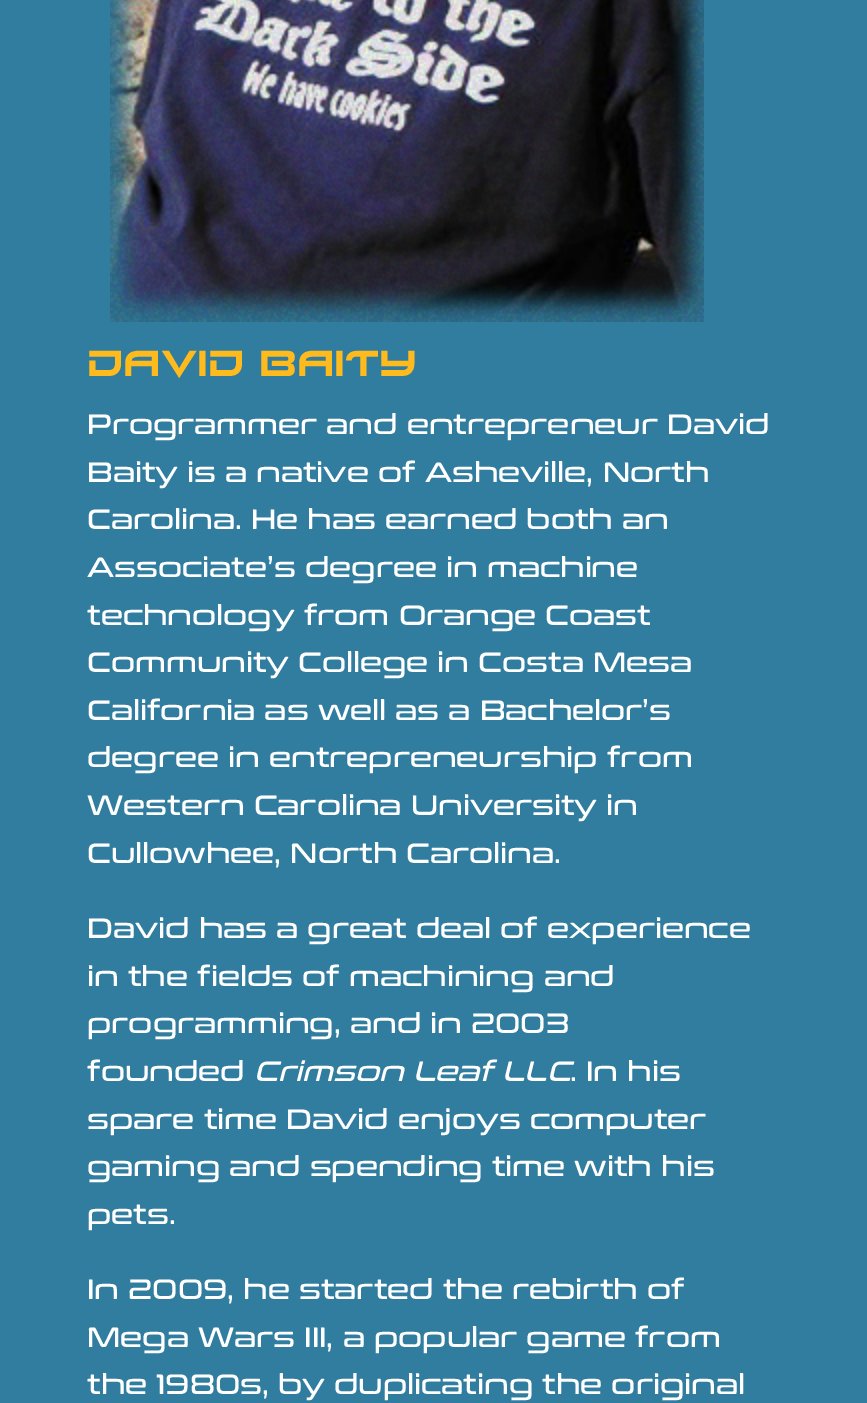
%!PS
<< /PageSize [867 1403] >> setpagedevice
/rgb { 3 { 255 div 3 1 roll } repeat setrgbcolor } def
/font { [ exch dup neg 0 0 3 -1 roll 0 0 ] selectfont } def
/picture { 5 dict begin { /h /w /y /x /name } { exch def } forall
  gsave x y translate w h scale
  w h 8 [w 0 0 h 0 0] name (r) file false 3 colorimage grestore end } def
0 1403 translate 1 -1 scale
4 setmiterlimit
49 125 160 rgb
0 0 867 1403 rectfill
(img/1.rgb) 110 0 594 322 picture
/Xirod-Regular 36 font
255 186 29 rgb
87 376 moveto (David Baity) show
/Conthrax-Regular 28 font
255 255 255 rgb
[
  [(Programmer and entrepreneur David) 87 434]
  [(Baity is a native of Asheville, North) 87 482]
  [(Carolina. He has earned both an) 87 529]
  [(Associate’s degree in machine) 87 577]
  [(technology from Orange Coast) 87 625]
  [(Community College in Costa Mesa) 87 672]
  [(California as well as a Bachelor’s) 87 720]
  [(degree in entrepreneurship from) 87 767]
  [(Western Carolina University in) 87 815]
  [(Cullowhee, North Carolina.) 87 863]
  [(David has a great deal of experience) 87 938]
  [(in the fields of machining and) 87 986]
  [(programming, and in 2003) 87 1033]
  [(founded) 87 1081]
] { aload pop moveto show } forall
/Conthrax-Italic 28 font
254 1081 moveto (Crimson Leaf LLC) show
/Conthrax-Regular 28 font
[
  [(. In his) 570 1081]
  [(spare time David enjoys computer) 87 1129]
  [(gaming and spending time with his) 87 1176]
  [(pets.) 87 1224]
  [(In 2009, he started the rebirth of) 87 1299]
  [(Mega Wars III, a popular game from) 87 1347]
  [(the 1980s, by duplicating the original) 87 1394]
] { aload pop moveto show } forall
showpage
